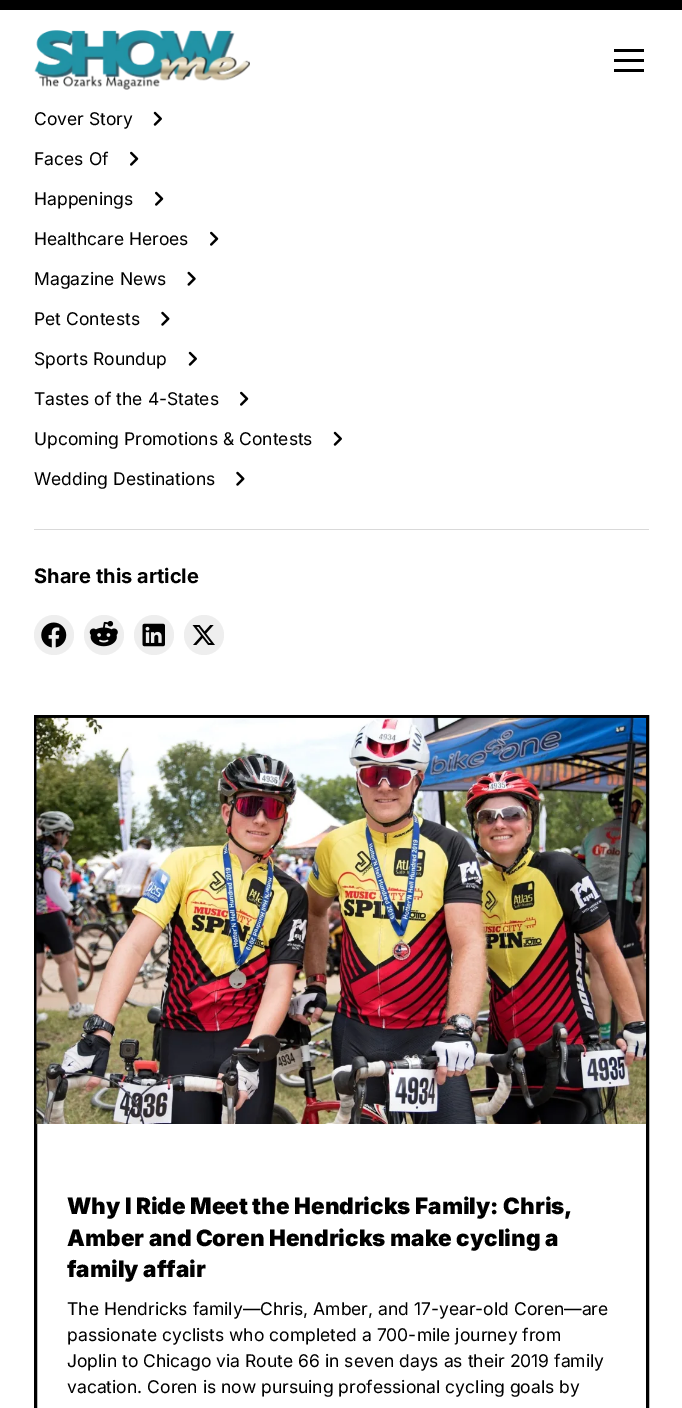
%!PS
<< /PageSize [682 1408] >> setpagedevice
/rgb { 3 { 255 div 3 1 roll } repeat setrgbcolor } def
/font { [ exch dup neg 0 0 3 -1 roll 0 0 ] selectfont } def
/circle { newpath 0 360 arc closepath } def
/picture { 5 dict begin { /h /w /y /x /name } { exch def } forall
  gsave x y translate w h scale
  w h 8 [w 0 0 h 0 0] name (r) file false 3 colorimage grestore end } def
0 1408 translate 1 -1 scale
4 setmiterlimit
255 255 255 rgb
0 0 682 1408 rectfill
0 0 0 rgb
0 0 682 10 rectfill
(img/1.rgb) 34 30 216 60 picture
[
  [614 49 30 3 0 0 0]
  [614 59 30 3 0 0 0]
  [614 69 30 3 0 0 0]
] { aload pop rgb rectfill } forall
(img/2.rgb) 153 111 9 15 picture
(img/3.rgb) 130 151 9 15 picture
(img/3.rgb) 155 191 9 15 picture
(img/3.rgb) 210 231 9 15 picture
(img/4.rgb) 187 271 9 15 picture
(img/5.rgb) 161 311 9 15 picture
(img/2.rgb) 188 351 9 15 picture
(img/3.rgb) 240 391 9 15 picture
(img/2.rgb) 333 431 9 15 picture
(img/5.rgb) 236 471 9 15 picture
217 217 217 rgb
34 529 615 1 rectfill
238 238 238 rgb
54 635 20 circle fill
(img/6.rgb) 41 622 26 26 picture
104 635 20 circle fill
(img/7.rgb) 89 620 29 27 picture
154 635 20 circle fill
(img/8.rgb) 142 623 23 24 picture
204 635 20 circle fill
(img/9.rgb) 192 625 23 20 picture
0 0 0 rgb
3 setlinewidth
35.5 716.5 612 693 rectstroke
(img/10.rgb) 36 717 611 407 picture
/Inter-Regular 17.5 font
[
  [(Cover Story) 34 125]
  [(Faces Of) 34 165]
  [(Happenings) 34 205]
  [(Healthcare Heroes) 34 245]
  [(Magazine News) 34 285]
  [(Pet Contests) 34 325]
  [(Sports Roundup) 34 365]
  [(Tastes of the 4-States) 34 405]
  [(Upcoming Promotions & Contests) 34 445]
  [(Wedding Destinations) 34 485]
] { aload pop moveto show } forall
/Inter-Bold 20 font
34 583 moveto (Share this article) show
/Inter-Black 22.5 font
[
  [(Why I Ride Meet the Hendricks Family: Chris,) 67 1214]
  [(Amber and Coren Hendricks make cycling a) 67 1246]
  [(family affair) 67 1277]
] { aload pop moveto show } forall
/Inter-Regular 17.5 font
[
  [(The Hendricks family—Chris, Amber, and 17-year-old Coren—are) 67 1315]
  [(passionate cyclists who completed a 700-mile journey from) 67 1341]
  [(Joplin to Chicago via Route 66 in seven days as their 2019 family) 67 1367]
  [(vacation. Coren is now pursuing professional cycling goals by) 67 1393]
] { aload pop moveto show } forall
showpage
